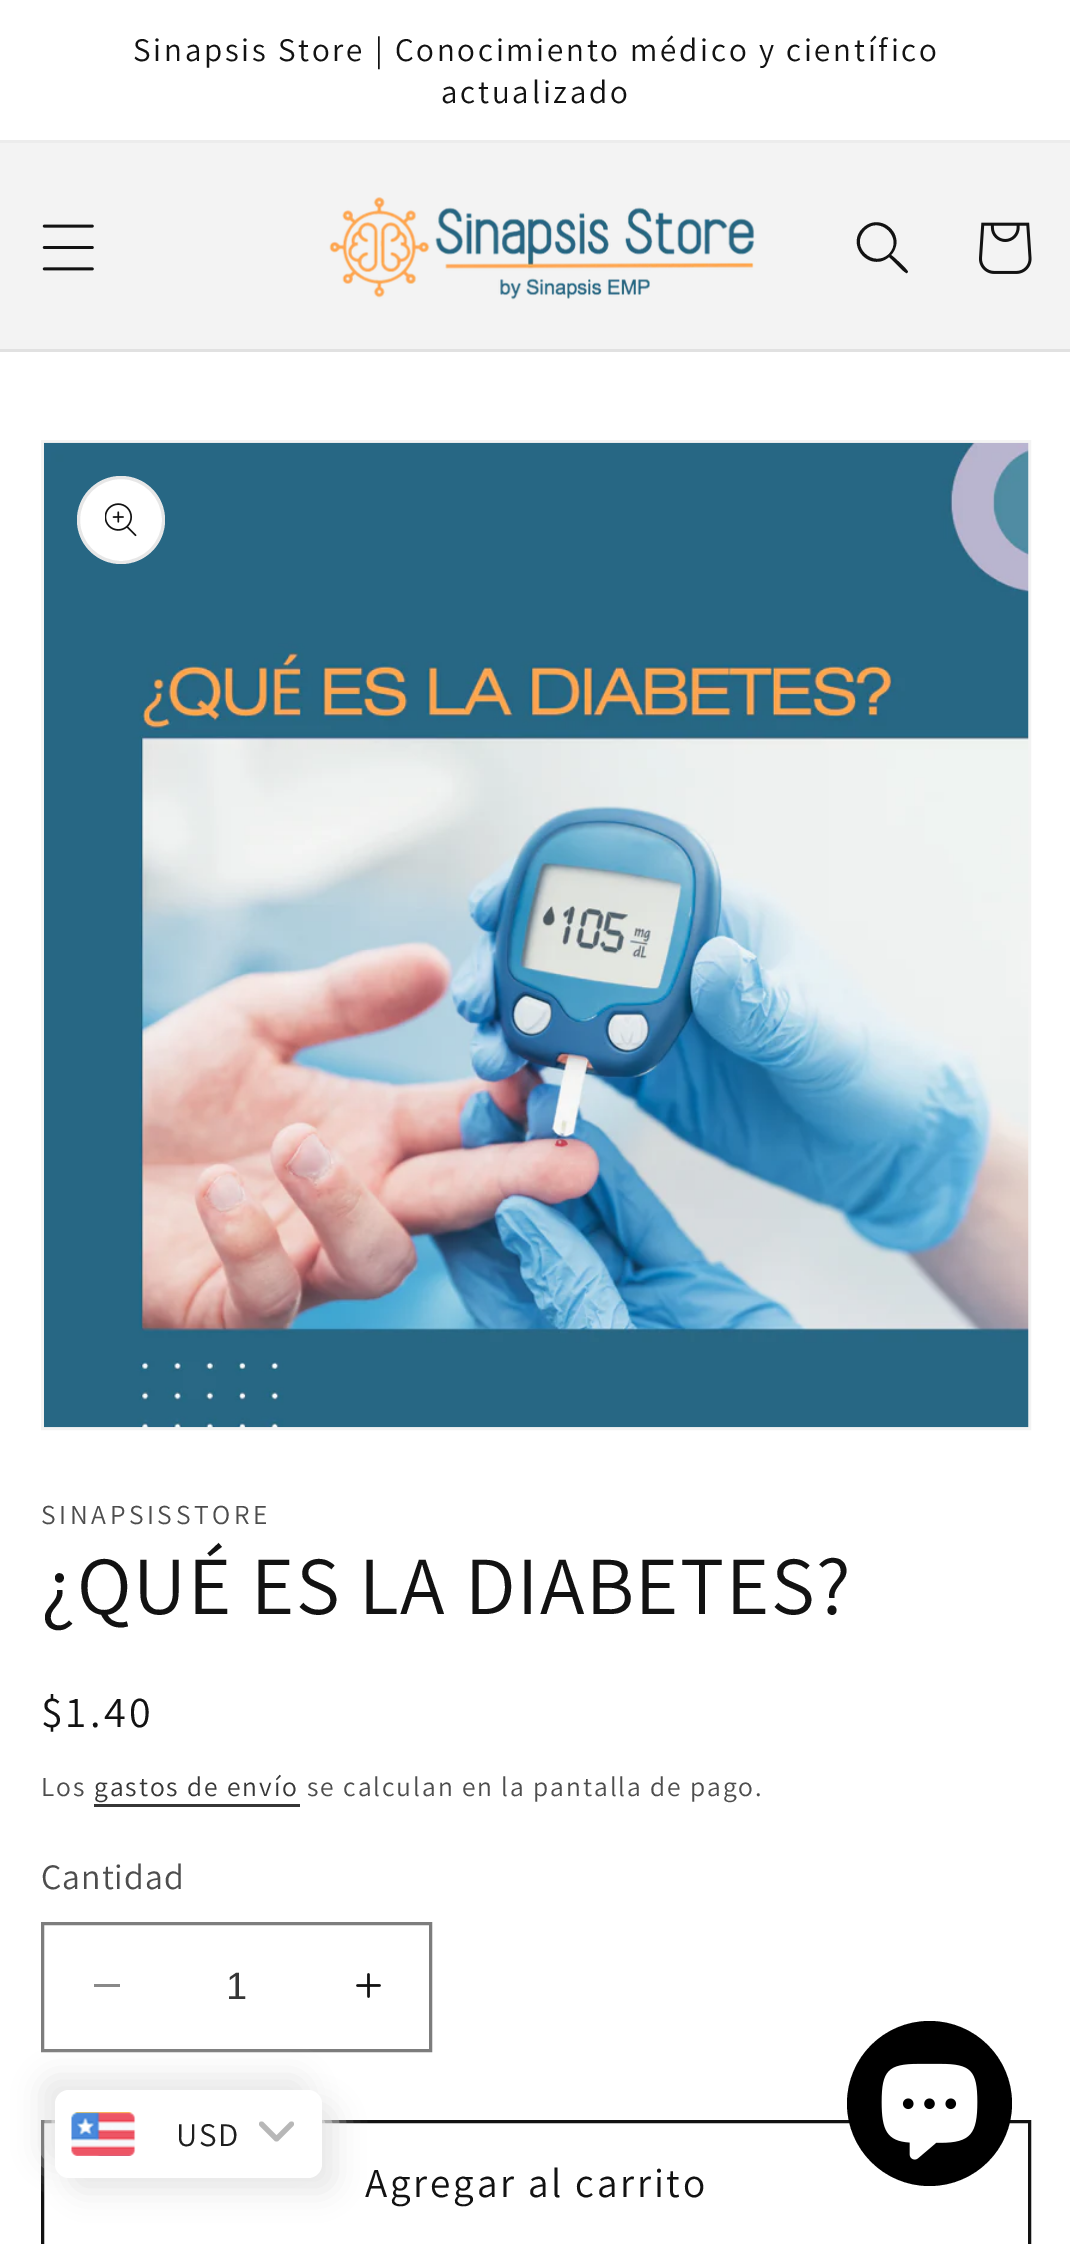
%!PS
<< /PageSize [1070 2244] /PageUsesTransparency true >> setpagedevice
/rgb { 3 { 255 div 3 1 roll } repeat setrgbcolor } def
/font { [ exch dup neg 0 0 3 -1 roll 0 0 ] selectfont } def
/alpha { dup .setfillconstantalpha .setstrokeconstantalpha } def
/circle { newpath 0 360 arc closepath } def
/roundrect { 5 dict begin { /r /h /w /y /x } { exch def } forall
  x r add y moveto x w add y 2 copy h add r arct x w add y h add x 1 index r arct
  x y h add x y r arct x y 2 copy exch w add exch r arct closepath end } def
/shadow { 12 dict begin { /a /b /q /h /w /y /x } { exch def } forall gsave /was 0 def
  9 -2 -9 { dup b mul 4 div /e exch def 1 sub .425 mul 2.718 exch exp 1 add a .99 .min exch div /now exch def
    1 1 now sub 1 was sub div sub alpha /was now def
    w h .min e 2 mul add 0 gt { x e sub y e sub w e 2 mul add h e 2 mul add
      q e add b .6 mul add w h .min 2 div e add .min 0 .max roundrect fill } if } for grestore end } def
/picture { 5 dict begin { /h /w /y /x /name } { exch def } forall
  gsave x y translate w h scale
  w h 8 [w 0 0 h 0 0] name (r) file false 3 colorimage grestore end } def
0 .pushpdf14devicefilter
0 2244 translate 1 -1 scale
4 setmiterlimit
255 255 255 rgb
0 0 1070 2244 rectfill
[
  [0 140 1070 3 236 236 236]
  [0 143 1070 206 243 243 243]
  [0 349 1070 3 225 225 225]
] { aload pop rgb rectfill } forall
(img/1.rgb) 42 224 52 47 picture
(img/2.rgb) 329 197 426 103 picture
18 18 18 rgb
889 254 moveto 873 269 849 246 865 230 curveto 880 215 904 238 889 254 curveto closepath 889 257 moveto 870 273 845 245 863 228 curveto 881 211 908 236 891 255 curveto 894 257 908 270 908 272 curveto 907 273 lineto 905 274 892 259 889 257 curveto closepath eofill
(img/3.rgb) 979 222 53 52 picture
243 243 243 rgb
3 setlinewidth
42.5 441.5 987 987 rectstroke
(img/4.rgb) 44 442 985 986 picture
255 255 255 rgb
121 520 44 circle fill
0.1 alpha
18 18 18 rgb
121 520 42.5 circle stroke
1 alpha
(img/5.rgb) 105 503 32 34 picture
54 54 54 rgb
94 1804 206 3 rectfill
137 137 137 rgb
94 1984 26 3 rectfill
(img/6.rgb) 356 1973 25 25 picture
125 125 125 rgb
42.5 1923.5 388 127 rectstroke
18 18 18 rgb
42.5 2121.5 987 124 rectstroke
0 0 0 rgb
929.5 2103.5 82.5 circle fill
(img/7.rgb) 881 2063 97 97 picture
232 232 232 rgb
41 2076 267 88 14 14 1 shadow
69 2104 267 88 14 14 1 shadow
255 255 255 rgb
55 2090 267 88 14 roundrect fill
(img/8.rgb) 71 2112 65 44 picture
183 183 183 rgb
5 setlinewidth
1 setlinecap
1 setlinejoin
261.5 2124 moveto 276.5 2139 lineto 291.5 2124 lineto stroke
/Assistant-Regular 33 font
18 18 18 rgb
133 61 moveto 2.75 0 (Sinapsis Store | Conocimiento médico y científico) ashow
441 103 moveto 2.75 0 (actualizado) ashow
/Assistant-Regular 27.5 font
77 77 77 rgb
41 1524 moveto 3.6 0 (SINAPSISSTORE) ashow
/Assistant-Regular 82.5 font
18 18 18 rgb
41 1614 moveto 1.6 0 (¿QUÉ ES LA DIABETES?) ashow
/Assistant-Regular 44 font
41 1727 moveto 3.6 0 ($1.40) ashow
/Assistant-Regular 27.5 font
77 77 77 rgb
41 1796 moveto 1.9 0 (Los) ashow
54 54 54 rgb
94 1796 moveto 1.9 0 (gastos de envío) ashow
77 77 77 rgb
307 1796 moveto 1.9 0 (se calculan en la pantalla de pago.) ashow
/Assistant-Regular 35.75 font
41 1889 moveto 1 0 (Cantidad) ashow
/LiberationSans-Regular 38 font
54 54 54 rgb
226 1999 moveto (1) show
/Assistant-Regular 41.25 font
18 18 18 rgb
365 2197 moveto 2.75 0 (Agregar al carrito) ashow
/Assistant-Regular 33 font
30 30 30 rgb
176 2146 moveto 1.6 0 (USD) ashow
.poppdf14devicefilter showpage
